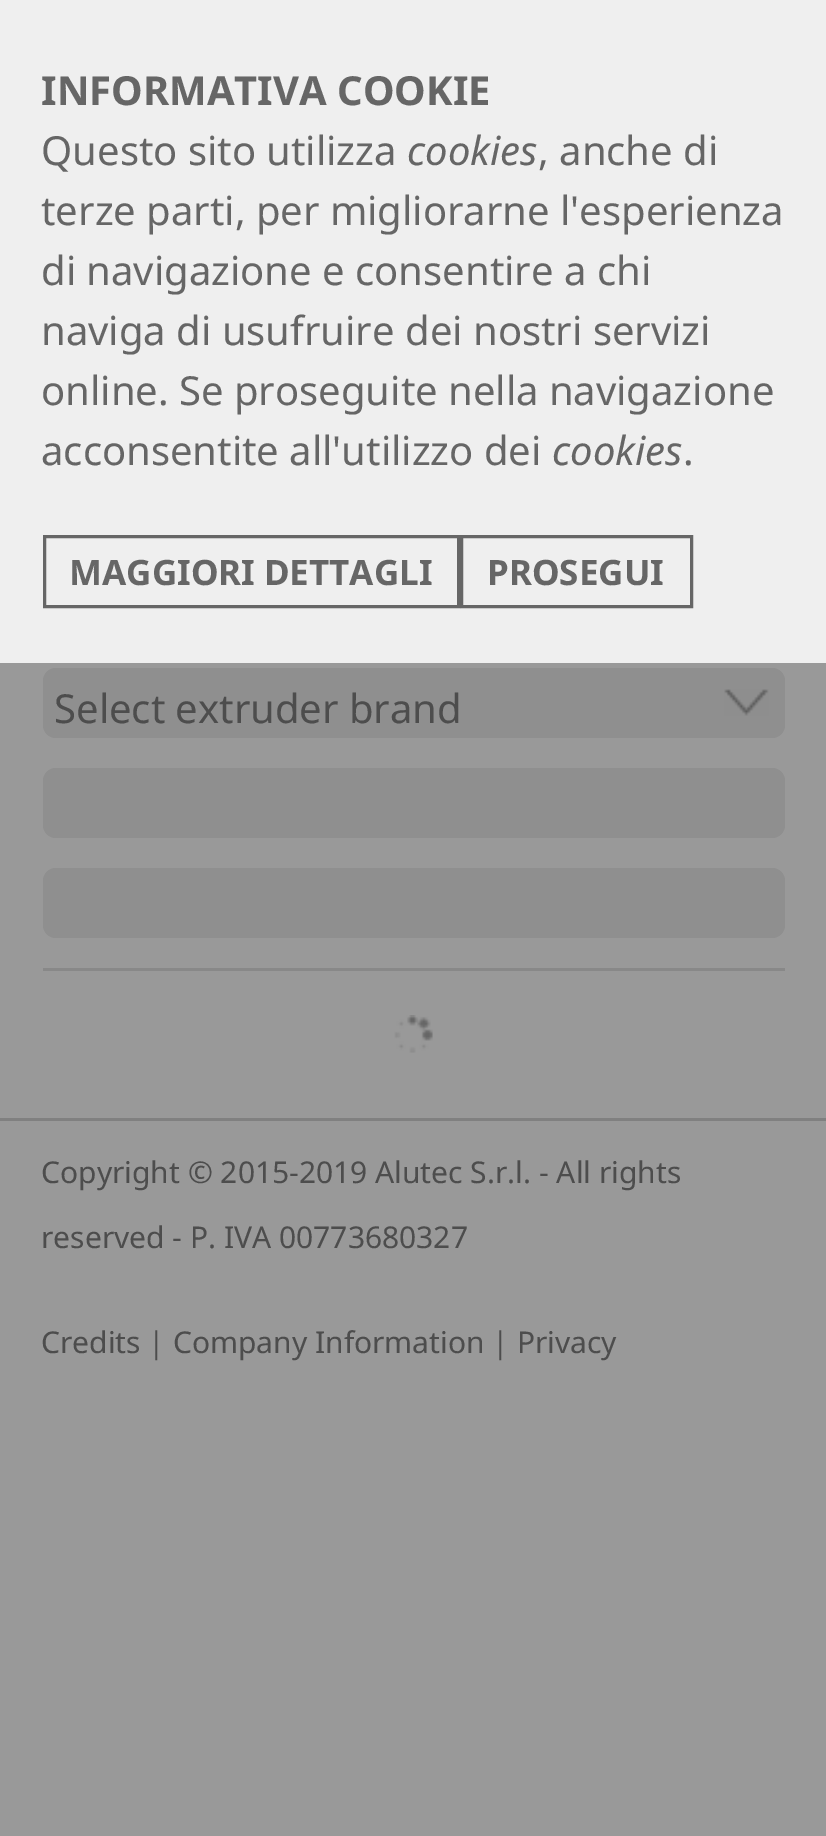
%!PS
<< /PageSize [826 1836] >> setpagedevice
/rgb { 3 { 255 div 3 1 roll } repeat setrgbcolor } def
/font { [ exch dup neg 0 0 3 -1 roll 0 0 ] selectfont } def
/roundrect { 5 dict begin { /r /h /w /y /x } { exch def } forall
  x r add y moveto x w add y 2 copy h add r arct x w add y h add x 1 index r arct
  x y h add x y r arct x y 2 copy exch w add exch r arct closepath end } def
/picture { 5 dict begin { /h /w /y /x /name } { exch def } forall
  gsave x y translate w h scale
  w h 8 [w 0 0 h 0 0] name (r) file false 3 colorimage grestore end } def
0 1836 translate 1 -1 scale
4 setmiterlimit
153 153 153 rgb
0 0 826 1836 rectfill
239 239 239 rgb
0 0 826 663 rectfill
102 102 102 rgb
3 setlinewidth
44.5 536.5 414 70 rectstroke
461.5 536.5 230 70 rectstroke
136 136 136 rgb
43 968 742 3 rectfill
143 143 143 rgb
43 668 742 70 13 roundrect fill
(img/1.rgb) 724 689 45 27 picture
43 768 742 70 13 roundrect fill
43 868 742 70 13 roundrect fill
(img/2.rgb) 394 1015 39 38 picture
128 128 128 rgb
0 1118 826 3 rectfill
/NotoSans-Bold 40 font
102 102 102 rgb
41 105 moveto (INFORMATIVA COOKIE) show
/NotoSans-Regular 40 font
41 165 moveto (Questo sito utilizza) show
/NotoSans-Italic 40 font
407 165 moveto (cookies) show
/NotoSans-Regular 40 font
[
  [(, anche di) 538 165]
  [(terze parti, per migliorarne l'esperienza) 41 225]
  [(di navigazione e consentire a chi) 41 285]
  [(naviga di usufruire dei nostri servizi) 41 345]
  [(online. Se proseguite nella navigazione) 41 405]
  [(acconsentite all'utilizzo dei) 41 465]
] { aload pop moveto show } forall
/NotoSans-Italic 40 font
552 465 moveto (cookies) show
/NotoSans-Regular 40 font
683 465 moveto (.) show
/NotoSans-Bold 35 font
69 585 moveto (MAGGIORI DETTAGLI) show
487 585 moveto (PROSEGUI) show
/NotoSans-Regular 40 font
77 77 77 rgb
54 723 moveto (Select extruder brand) show
/NotoSans-Regular 30 font
[
  [(Copyright © 2015-2019 Alutec S.r.l. - All rights) 41 1183]
  [(reserved - P. IVA 00773680327) 41 1248]
  [(Credits | Company Information | Privacy) 41 1353]
] { aload pop moveto show } forall
showpage
